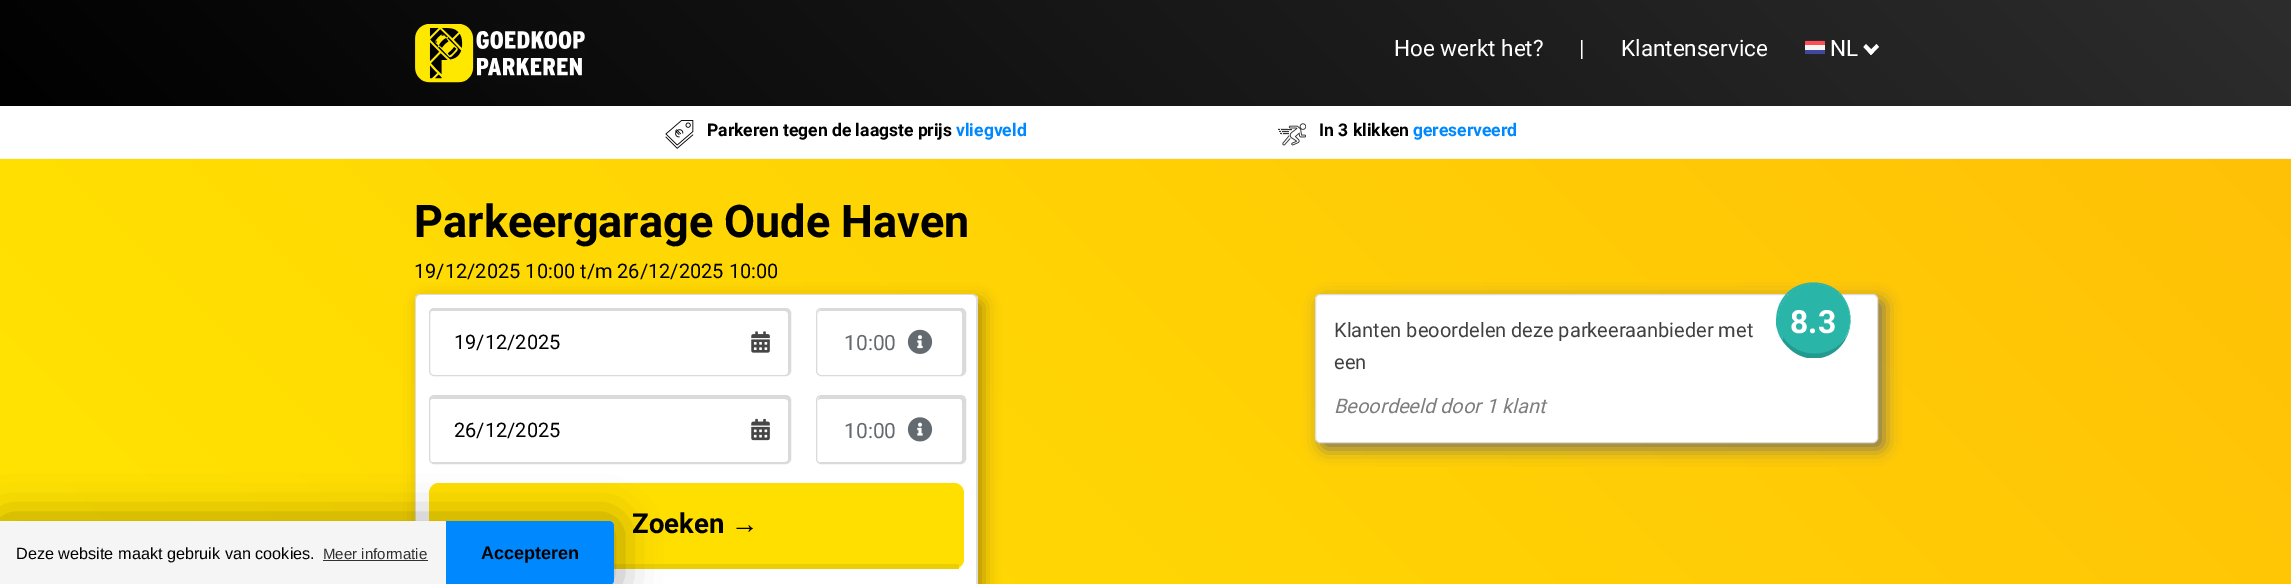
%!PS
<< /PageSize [2291 584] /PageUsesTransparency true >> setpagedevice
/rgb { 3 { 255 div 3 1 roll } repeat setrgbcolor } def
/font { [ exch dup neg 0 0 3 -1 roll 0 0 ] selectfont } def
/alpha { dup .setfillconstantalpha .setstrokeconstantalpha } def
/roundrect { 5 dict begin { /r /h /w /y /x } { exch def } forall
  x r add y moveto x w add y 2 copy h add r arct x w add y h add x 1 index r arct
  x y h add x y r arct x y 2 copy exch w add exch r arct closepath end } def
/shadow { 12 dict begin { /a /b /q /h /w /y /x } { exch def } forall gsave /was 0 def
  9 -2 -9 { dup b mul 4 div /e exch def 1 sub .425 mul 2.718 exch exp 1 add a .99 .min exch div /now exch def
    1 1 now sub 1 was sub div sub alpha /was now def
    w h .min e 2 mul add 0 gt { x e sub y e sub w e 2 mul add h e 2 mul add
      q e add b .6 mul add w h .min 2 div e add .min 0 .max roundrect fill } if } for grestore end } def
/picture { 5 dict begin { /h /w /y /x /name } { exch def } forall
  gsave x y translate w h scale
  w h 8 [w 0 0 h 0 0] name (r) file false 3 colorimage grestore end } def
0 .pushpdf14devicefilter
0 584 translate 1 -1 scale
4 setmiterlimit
255 255 255 rgb
0 0 2291 584 rectfill
gsave 0 0 moveto 2291 0 lineto 2291 106 lineto 0 106 lineto closepath clip newpath
<< /ShadingType 2 /ColorSpace /DeviceRGB /Coords [533 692 1758 -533] /Extend [true true] /Function << /FunctionType 2 /Domain [0 1] /C0 [0 0 0] /C1 [0.176 0.176 0.176] /N 1 >> >> shfill grestore
(img/1.rgb) 415 24 170 59 picture
(img/2.rgb) 1805 40 20 15 picture
1876.5 44 moveto 1879 47 lineto 1871 55 lineto 1868.5 52 lineto closepath fill
1866 44 moveto 1874 52 lineto 1871 55 lineto 1863.5 47 lineto closepath fill
245 245 245 rgb
0 158 2291 1 rectfill
(img/3.rgb) 665 120 29 29 picture
(img/4.rgb) 1278 123 28 23 picture
gsave 0 159 moveto 2291 159 lineto 2291 584 lineto 0 584 lineto closepath clip newpath
<< /ShadingType 2 /ColorSpace /DeviceRGB /Coords [392 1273 1899 -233] /Extend [true true] /Function << /FunctionType 2 /Domain [0 1] /C0 [1 0.91 0.004] /C1 [1 0.757 0.027] /N 1 >> >> shfill grestore
176 145 7 rgb
421 300 563 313 5 8 1 shadow
255 255 255 rgb
420 295 moveto 972 295 lineto 975 295 976 297 976 299 curveto 976 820 lineto 416 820 lineto 416 299 lineto 416 297 418 295 420 295 curveto closepath fill
221 221 221 rgb
420 294 moveto 419 294 417 294 417 295 curveto 417 296 lineto 418 295 419 295 420 295 curveto 972 295 lineto 973 295 974 295 975 296 curveto 976 295 lineto 972 294 lineto closepath fill
976 295 moveto 978 297 lineto 978 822 lineto 977 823 lineto 976 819 lineto 976 299 lineto 976 298 976 297 975 296 curveto closepath fill
415 299 moveto 415 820 lineto 416 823 lineto 416 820 lineto 416 299 lineto 417 296 lineto 417 295 lineto 416 296 415 297 415 299 curveto closepath fill
218 218 218 rgb
432 311 moveto 785 311 lineto 786 311 788 312 788 314 curveto 788 372 lineto 788 374 786 375 785 375 curveto 792 375 790 366 790 361 curveto 790 313 lineto 790 311 788 309 786 309 curveto 434 309 lineto 431 309 430 311 430 314 curveto 430 312 431 311 432 311 curveto closepath fill
429.5 308.5 361 67 4.5 roundrect stroke
(img/5.rgb) 751 331 19 22 picture
820 311 moveto 960 311 lineto 961 311 962 312 962 314 curveto 962 372 lineto 962 374 961 375 960 375 curveto 961 375 lineto 963 375 965 373 965 371 curveto 965 313 lineto 965 311 963 309 961 309 curveto 822 309 lineto 820 309 818 311 818 313 curveto 818 314 lineto 818 312 819 311 820 311 curveto closepath fill
816.5 308.5 149 67 4.5 roundrect stroke
(img/6.rgb) 907 329 26 25 picture
432 399 moveto 785 399 lineto 786 399 788 400 788 401 curveto 788 460 lineto 788 461 786 462 785 462 curveto 431 462 lineto 432 463 433 463 434 463 curveto 786 463 lineto 788 463 790 461 790 459 curveto 790 400 lineto 790 398 788 396 786 396 curveto 434 396 lineto 432 396 430 398 430 400 curveto 430 401 lineto 430 400 431 399 432 399 curveto closepath fill
429.5 395.5 361 68 4.5 roundrect stroke
(img/7.rgb) 751 418 19 23 picture
820 399 moveto 960 399 lineto 961 399 962 400 962 401 curveto 962 460 lineto 962 461 961 462 960 462 curveto 819 462 lineto 820 463 821 463 822 463 curveto 961 463 lineto 963 463 965 461 965 459 curveto 965 400 lineto 965 398 963 396 961 396 curveto 822 396 lineto 820 396 818 398 818 400 curveto 818 401 lineto 818 400 819 399 820 399 curveto closepath fill
816.5 395.5 149 68 4.5 roundrect stroke
(img/8.rgb) 907 417 26 25 picture
255 223 0 rgb
429 483 535 86 10 roundrect fill
236 207 2 rgb
614 564 345 5 rectfill
105 105 105 rgb
1321 300 563 149 5 8 0.85 shadow
255 255 255 rgb
1315.5 294.5 562 148 4.5 roundrect gsave fill grestore
221 221 221 rgb
stroke
42 181 169 rgb
1814 284 moveto 1834 284 1850 300 1850 320 curveto 1850 339 1834 354 1814 354 curveto 1794 354 1778 339 1778 320 curveto 1778 300 1794 284 1814 284 curveto closepath fill
1814 284 moveto 1804 284 1795 288 1788 295 curveto 1787 293 lineto 1801 279 1826 279 1840 293 curveto 1839 294 lineto 1833 288 1824 284 1814 284 curveto closepath fill
1840 293 moveto 1852 306 1854 325 1845 340 curveto 1845 338 lineto 1854 324 1851 306 1839 294 curveto closepath fill
34 154 143 rgb
1808 358 moveto 1797 356 1788 349 1782 340 curveto 1783 337 lineto 1797 359 1831 359 1845 338 curveto 1845 340 lineto 1840 349 1831 356 1820 358 curveto closepath fill
42 181 169 rgb
1776 324 moveto 1776 312 1778 303 1787 293 curveto 1788 295 lineto 1777 306 1775 324 1783 337 curveto 1782 340 lineto 1779 336 1777 330 1776 324 curveto closepath fill
0 0 0 rgb
-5 516 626 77 11 19 0.3 shadow
245 245 245 rgb
0 521 moveto 609 521 lineto 612 521 614 523 614 526 curveto 614 580 lineto 614 583 612 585 609 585 curveto 0 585 lineto closepath fill
49 49 49 rgb
323 560 105 1 rectfill
0 137 255 rgb
446 521 moveto 609 521 lineto 612 521 614 523 614 526 curveto 614 580 lineto 614 583 612 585 609 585 curveto 446 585 lineto closepath fill
/Roboto-Regular 22.5 font
255 255 255 rgb
[
  [(Hoe werkt het?) 1394 56]
  [(|) 1579 56]
  [(Klantenservice) 1621 56]
  [(NL) 1830 56]
] { aload pop moveto show } forall
/Roboto-Bold 17.5 font
0 0 0 rgb
707 136 moveto (Parkeren tegen de laagste prijs) show
0 137 255 rgb
956 136 moveto (vliegveld) show
0 0 0 rgb
1319 136 moveto (In 3 klikken) show
0 137 255 rgb
1413 136 moveto (gereserveerd) show
/Roboto-Bold 45 font
0 0 0 rgb
414 237 moveto (Parkeergarage Oude Haven) show
/Roboto-Regular 20 font
414 278 moveto (19/12/2025 10:00 t/m 26/12/2025 10:00) show
454 349 moveto (19/12/2025) show
/Roboto-Regular 21 font
99 107 111 rgb
844 350 moveto (10:00) show
/Roboto-Regular 20 font
0 0 0 rgb
454 437 moveto (26/12/2025) show
/Roboto-Regular 21 font
99 107 111 rgb
844 438 moveto (10:00) show
/Roboto-Bold 27.5 font
0 0 0 rgb
632 533 moveto (Zoeken) show
/LiberationSans-Bold 27.5 font
731 533 moveto (→) show
/Roboto-Regular 20 font
64 64 64 rgb
1334 337 moveto (Klanten beoordelen deze parkeeraanbieder met) show
1334 369 moveto (een) show
/Roboto-Bold 32 font
255 255 255 rgb
1790 333 moveto (8.3) show
/Roboto-Italic 20 font
125 125 125 rgb
1334 413 moveto (Beoordeeld door 1 klant) show
/LiberationSans-Regular 16.25 font
0 0 0 rgb
16 559 moveto (Deze website maakt gebruik van cookies.) show
/LiberationSans-Regular 15 font
49 49 49 rgb
323 559 moveto (Meer informatie) show
/LiberationSans-Bold 18 font
0 0 0 rgb
481 559 moveto (Accepteren) show
.poppdf14devicefilter showpage
